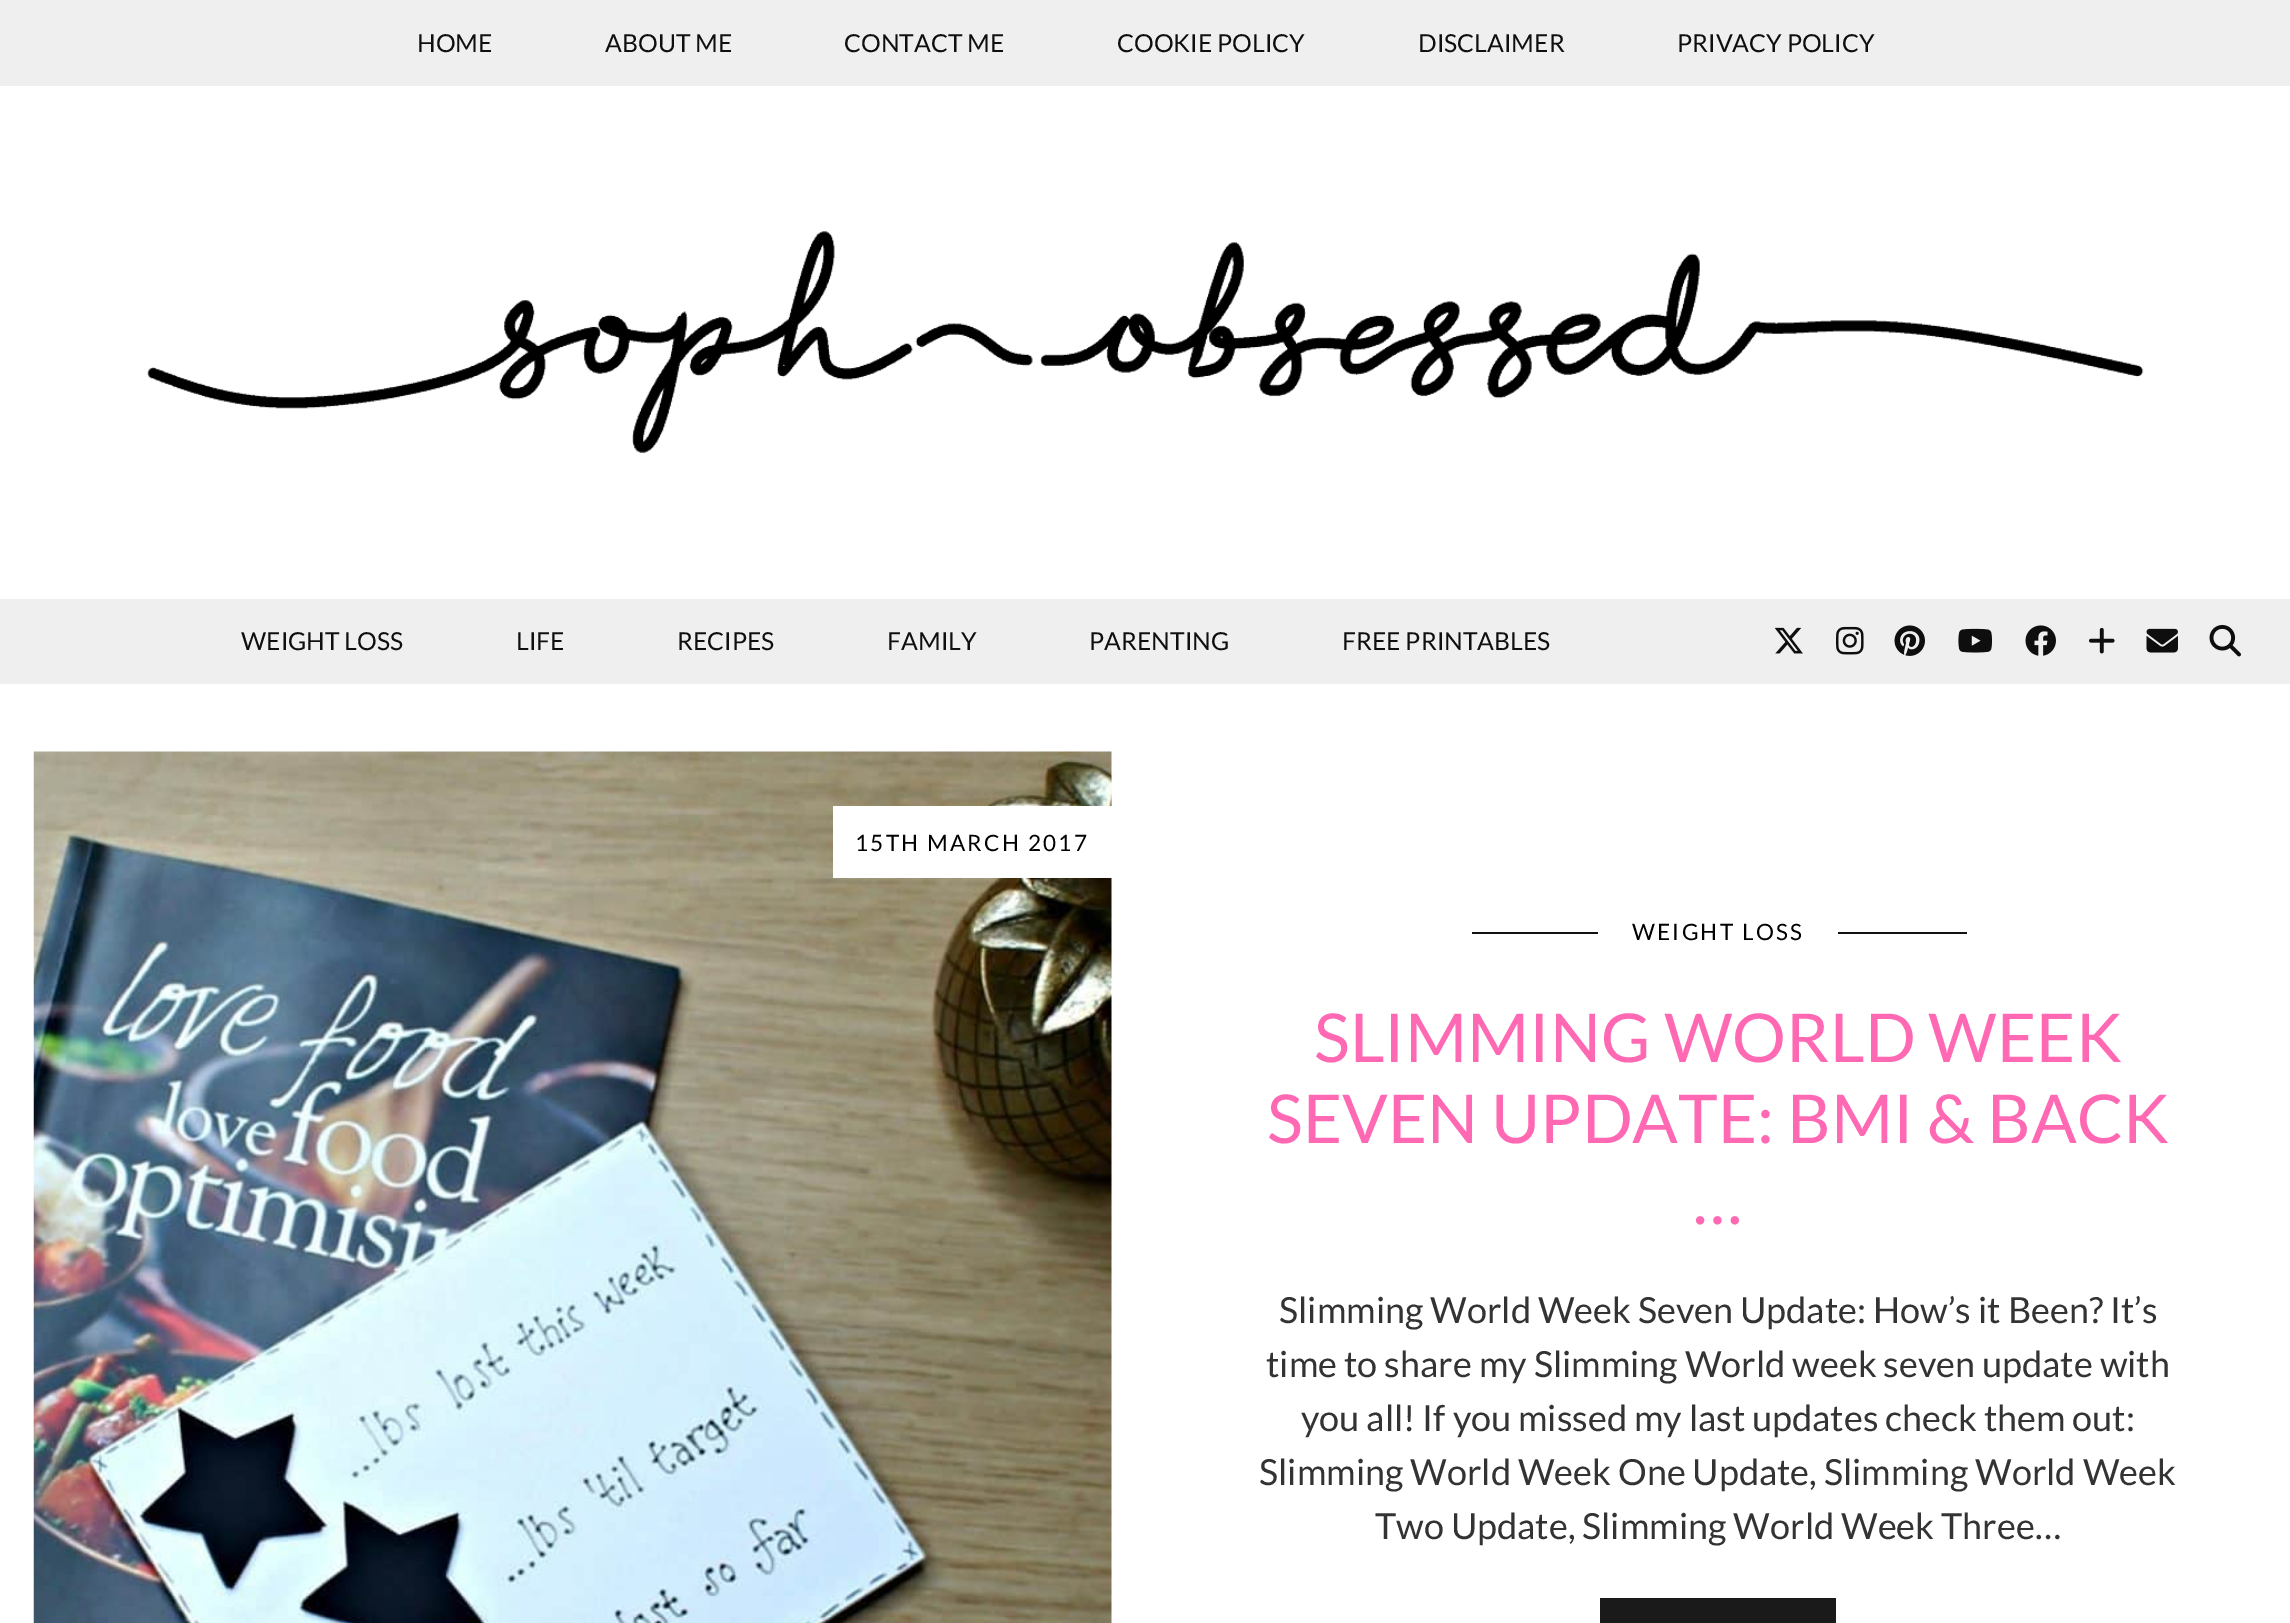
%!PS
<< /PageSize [2290 1623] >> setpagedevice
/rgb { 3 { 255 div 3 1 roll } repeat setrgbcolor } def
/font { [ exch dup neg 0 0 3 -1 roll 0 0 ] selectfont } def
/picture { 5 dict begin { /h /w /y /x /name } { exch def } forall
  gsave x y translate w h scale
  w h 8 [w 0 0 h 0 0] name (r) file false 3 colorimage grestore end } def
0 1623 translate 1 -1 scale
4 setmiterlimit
255 255 255 rgb
0 0 2290 1623 rectfill
239 239 239 rgb
0 0 2290 86 rectfill
(img/1.rgb) 147 231 1997 222 picture
0 599 2290 85 rectfill
(img/2.rgb) 1774 627 29 27 picture
(img/3.rgb) 1836 626 28 29 picture
(img/4.rgb) 1894 625 31 31 picture
(img/5.rgb) 1958 628 34 25 picture
(img/6.rgb) 2025 625 31 31 picture
(img/7.rgb) 2089 627 26 27 picture
(img/8.rgb) 2146 628 32 25 picture
(img/9.rgb) 2209 624 32 33 picture
(img/10.rgb) 33 751 1079 872 picture
[
  [833 806 279 72 255 255 255]
  [1472 932 495 2 17 17 17]
  [1598 932 240 2 255 255 255]
  [1600 1598 236 25 26 26 26]
] { aload pop rgb rectfill } forall
/Lato-Regular 24.75 font
15 15 15 rgb
[
  [(HOME) 417 52]
  [(ABOUT ME) 605 52]
  [(CONTACT ME) 844 52]
  [(COOKIE POLICY) 1117 52]
  [(DISCLAIMER) 1418 52]
  [(PRIVACY POLICY) 1677 52]
  [(WEIGHT LOSS) 241 650]
  [(LIFE) 516 650]
  [(RECIPES) 677 650]
  [(FAMILY) 887 650]
  [(PARENTING) 1089 650]
  [(FREE PRINTABLES) 1342 650]
] { aload pop moveto show } forall
/Lato-Regular 22.5 font
0 0 0 rgb
855 851 moveto 2.25 0 (15TH MARCH 2017) ashow
1632 940 moveto 2.25 0 (WEIGHT LOSS) ashow
/Lato-Regular 67.5 font
255 105 180 rgb
[
  [(SLIMMING WORLD WEEK) 1314 1062]
  [(SEVEN UPDATE: BMI & BACK) 1267 1143]
  [(…) 1693 1224]
] { aload pop moveto show } forall
/Lato-Regular 36 font
51 51 51 rgb
[
  [(Slimming World Week Seven Update: How’s it Been? It’s) 1279 1323]
  [(time to share my Slimming World week seven update with) 1266 1377]
  [(you all! If you missed my last updates check them out:) 1301 1431]
  [(Slimming World Week One Update, Slimming World Week) 1259 1485]
  [(Two Update, Slimming World Week Three…) 1375 1539]
] { aload pop moveto show } forall
showpage
